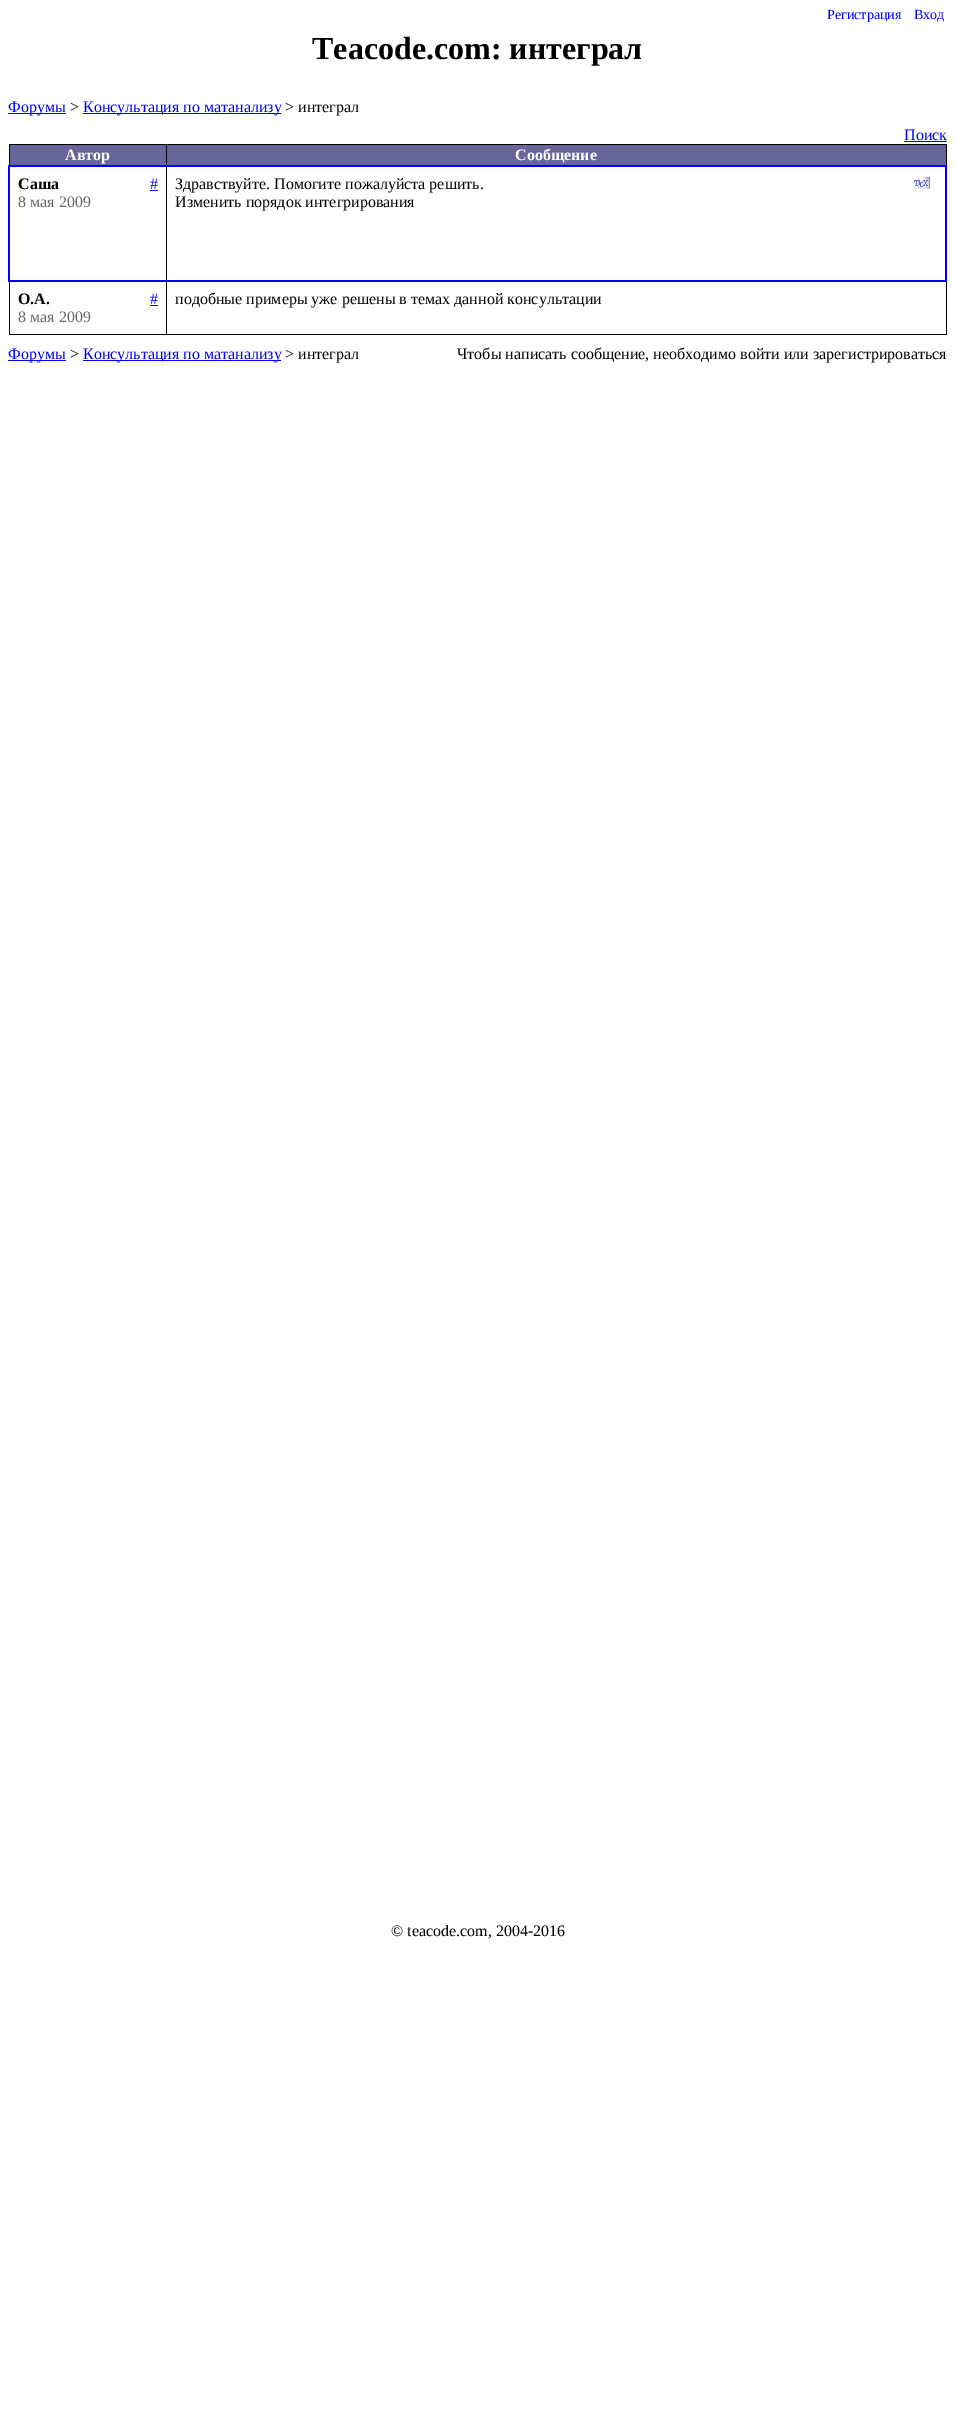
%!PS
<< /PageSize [955 2431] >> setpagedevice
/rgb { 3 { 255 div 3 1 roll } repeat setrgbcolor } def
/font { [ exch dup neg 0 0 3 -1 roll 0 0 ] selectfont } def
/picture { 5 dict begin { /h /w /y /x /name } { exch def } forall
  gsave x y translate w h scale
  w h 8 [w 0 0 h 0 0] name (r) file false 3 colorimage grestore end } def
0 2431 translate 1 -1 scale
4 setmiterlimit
255 255 255 rgb
0 0 955 2431 rectfill
[
  [8 113 58 1 0 0 238]
  [83 113 198 1 0 0 238]
  [904 141 43 1 0 0 238]
  [10 145 936 20 102 102 153]
  [166 144 781 1 0 0 0]
  [946 280 1 55 0 0 0]
  [166 334 781 1 0 0 0]
  [166 165 1 170 0 0 0]
  [166 144 1 22 0 0 0]
  [9 144 158 1 0 0 0]
  [9 144 1 22 0 0 0]
  [946 144 1 22 0 0 0]
  [8 165 939 2 0 0 255]
  [945 165 2 117 0 0 255]
  [9 334 158 1 0 0 0]
  [9 280 1 55 0 0 0]
  [8 280 939 2 0 0 255]
  [8 165 2 117 0 0 255]
  [150 190 8 1 0 0 255]
] { aload pop rgb rectfill } forall
(img/1.rgb) 914 177 16 12 picture
[
  [150 305 8 1 0 0 255]
  [8 360 58 1 0 0 238]
  [83 360 198 1 0 0 238]
] { aload pop rgb rectfill } forall
/LiberationSerif-Regular 14 font
0 0 255 rgb
827 19 moveto (Регистрация) show
914 19 moveto (Вход) show
/LiberationSerif-Bold 32 font
0 0 0 rgb
312 59 moveto (Teacode.com: интеграл) show
/LiberationSerif-Regular 16 font
0 0 238 rgb
8 112 moveto (Форумы) show
0 0 0 rgb
70 112 moveto (>) show
0 0 238 rgb
83 112 moveto (Консультация по матанализу) show
0 0 0 rgb
285 112 moveto (> интеграл) show
0 0 238 rgb
904 140 moveto (Поиск) show
/LiberationSerif-Bold 16 font
255 255 255 rgb
65 160 moveto (Автор) show
515 160 moveto (Сообщение) show
0 0 0 rgb
18 189 moveto (Саша) show
/LiberationSerif-Regular 16 font
0 0 255 rgb
150 189 moveto (#) show
102 102 102 rgb
18 207 moveto (8 мая 2009) show
0 0 0 rgb
175 189 moveto (Здравствуйте. Помогите пожалуйста решить.) show
175 207 moveto (Изменить порядок интегрирования) show
/LiberationSerif-Bold 16 font
18 304 moveto (О.А.) show
/LiberationSerif-Regular 16 font
0 0 255 rgb
150 304 moveto (#) show
102 102 102 rgb
18 322 moveto (8 мая 2009) show
0 0 0 rgb
175 304 moveto (подобные примеры уже решены в темах данной консультации) show
0 0 238 rgb
8 359 moveto (Форумы) show
0 0 0 rgb
70 359 moveto (>) show
0 0 238 rgb
83 359 moveto (Консультация по матанализу) show
0 0 0 rgb
[
  [(> интеграл) 285 359]
  [(Чтобы написать сообщение, необходимо войти или зарегистрироваться) 457 359]
  [(© teacode.com, 2004-2016) 391 1936]
] { aload pop moveto show } forall
showpage
